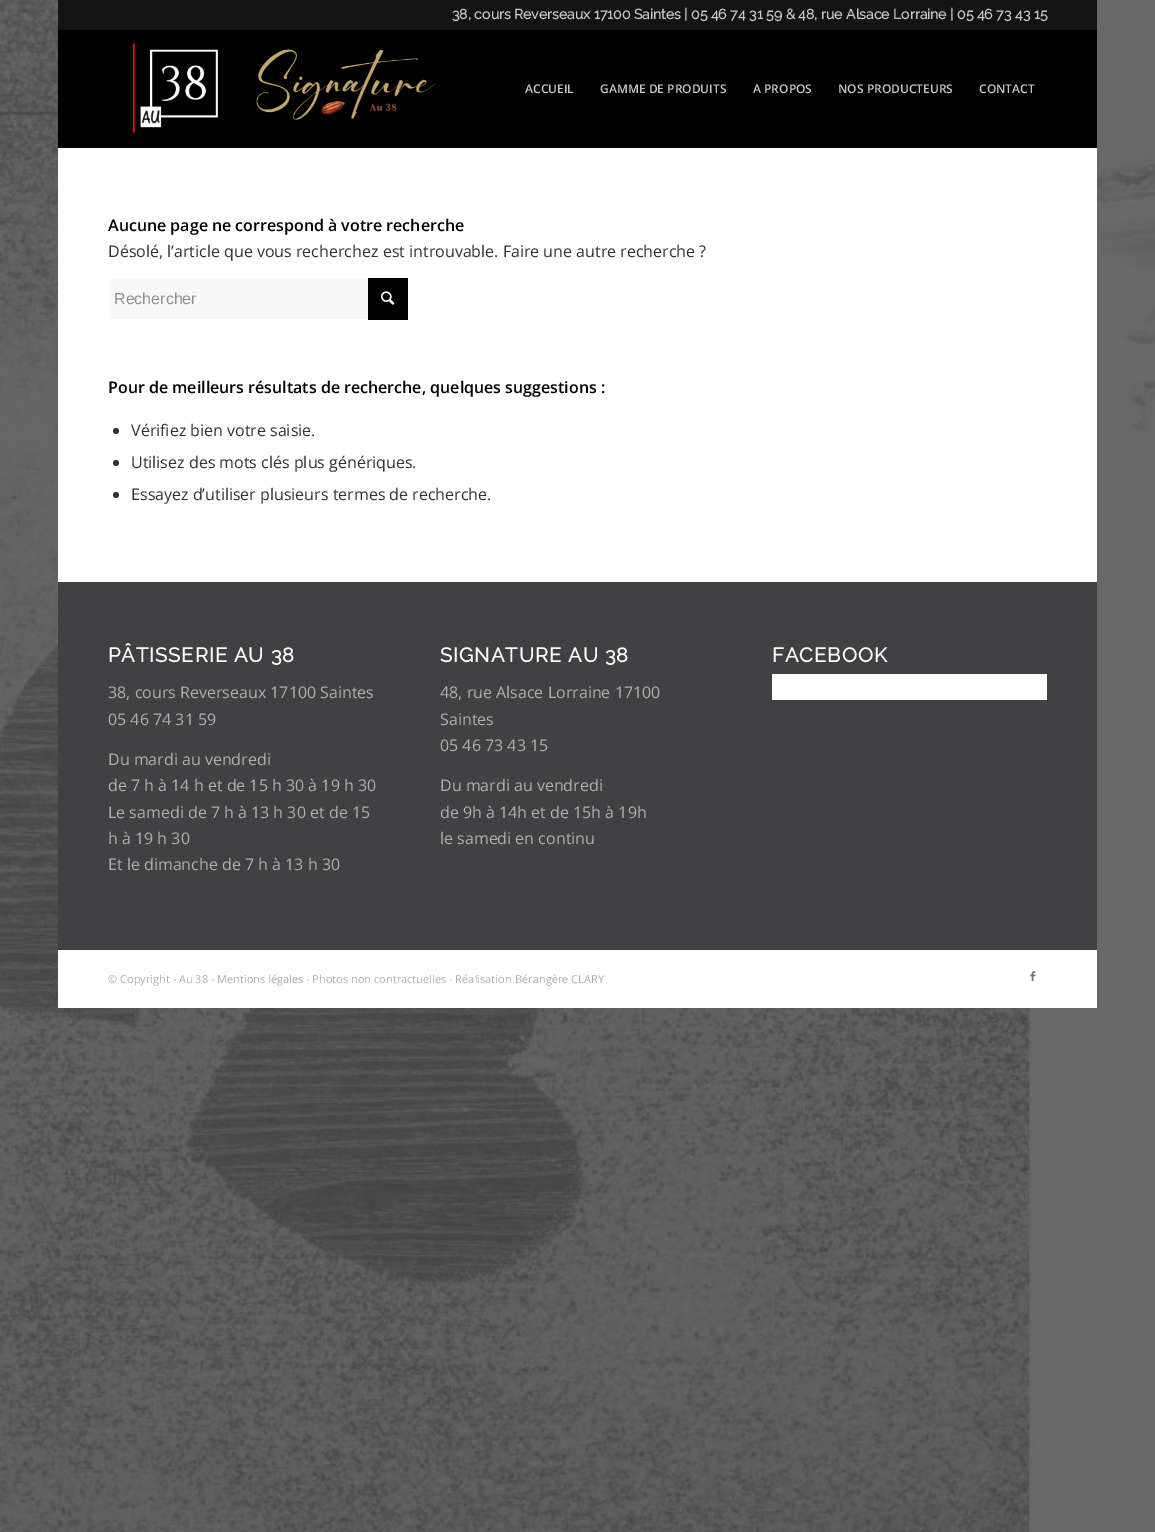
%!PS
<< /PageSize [1155 1532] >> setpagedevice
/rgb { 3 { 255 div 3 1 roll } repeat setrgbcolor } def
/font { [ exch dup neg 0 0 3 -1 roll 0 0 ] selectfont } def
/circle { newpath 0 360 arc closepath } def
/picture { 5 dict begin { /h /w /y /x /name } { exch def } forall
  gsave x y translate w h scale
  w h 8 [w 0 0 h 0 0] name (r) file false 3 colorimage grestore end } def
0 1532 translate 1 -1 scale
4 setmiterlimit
255 255 255 rgb
0 0 1155 1532 rectfill
(img/1.rgb) 0 0 1155 1532 picture
19 19 20 rgb
58 0 1039 30 rectfill
0 0 0 rgb
58 30 1039 118 rectfill
(img/2.rgb) 132 43 303 91 picture
[
  [58 148 1039 434 255 255 255]
  [109 279 259 40 248 248 248]
  [368 278 40 42 0 0 0]
] { aload pop rgb rectfill } forall
(img/3.rgb) 381 291 14 14 picture
51 49 51 rgb
116 431 3 circle fill
116 463 3 circle fill
116 495 3 circle fill
[
  [58 582 1039 368 65 64 66]
  [772 674 275 26 255 255 255]
  [58 950 1039 58 255 255 255]
] { aload pop rgb rectfill } forall
(img/4.rgb) 1030 971 6 11 picture
/Raleway-Bold 14 font
201 201 201 rgb
452 19 moveto (38, cours Reverseaux 17100 Saintes | 05 46 74 31 59 & 48, rue Alsace Lorraine | 05 46 73 43 15) show
/OpenSans-SemiBold 12 font
[
  [(ACCUEIL) 525 93]
  [(GAMME DE PRODUITS) 600 93]
  [(A PROPOS) 753 93]
  [(NOS PRODUCTEURS) 838 93]
  [(CONTACT) 979 93]
] { aload pop moveto show } forall
/OpenSans-SemiBold 16 font
0 0 0 rgb
108 231 moveto (Aucune page ne correspond à votre recherche) show
/OpenSans-Regular 16 font
51 49 51 rgb
108 257 moveto (Désolé, l’article que vous recherchez est introuvable. Faire une autre recherche ?) show
/LiberationSans-Regular 16 font
145 145 145 rgb
114 304 moveto (Rechercher) show
/OpenSans-SemiBold 16 font
0 0 0 rgb
108 393 moveto (Pour de meilleurs résultats de recherche, quelques suggestions :) show
/OpenSans-Regular 16 font
51 49 51 rgb
[
  [(Vérifiez bien votre saisie.) 131 436]
  [(Utilisez des mots clés plus génériques.) 131 468]
  [(Essayez d’utiliser plusieurs termes de recherche.) 131 500]
] { aload pop moveto show } forall
/Raleway-Bold 20 font
255 255 255 rgb
108 662 moveto 1 0 (PÂTISSERIE AU 38) ashow
/OpenSans-Regular 16 font
176 176 176 rgb
[
  [(38, cours Reverseaux 17100 Saintes) 108 698]
  [(05 46 74 31 59) 108 725]
  [(Du mardi au vendredi) 108 765]
  [(de 7 h à 14 h et de 15 h 30 à 19 h 30) 108 791]
  [(Le samedi de 7 h à 13 h 30 et de 15) 108 818]
  [(h à 19 h 30) 108 844]
  [(Et le dimanche de 7 h à 13 h 30) 108 870]
] { aload pop moveto show } forall
/Raleway-Bold 20 font
255 255 255 rgb
440 662 moveto 1 0 (SIGNATURE AU 38) ashow
/OpenSans-Regular 16 font
176 176 176 rgb
[
  [(48, rue Alsace Lorraine 17100) 440 698]
  [(Saintes) 440 725]
  [(05 46 73 43 15) 440 751]
  [(Du mardi au vendredi) 440 791]
  [(de 9h à 14h et de 15h à 19h) 440 818]
  [(le samedi en continu) 440 844]
] { aload pop moveto show } forall
/Raleway-Bold 20 font
255 255 255 rgb
772 662 moveto 1 0 (FACEBOOK) ashow
/OpenSans-Regular 11 font
176 176 176 rgb
108 983 moveto (© Copyright - Au 38 -) show
170 170 170 rgb
217 983 moveto (Mentions légales) show
176 176 176 rgb
306 983 moveto (- Photos non contractuelles - Réalisation) show
170 170 170 rgb
515 983 moveto (Bérangère CLARY) show
showpage
